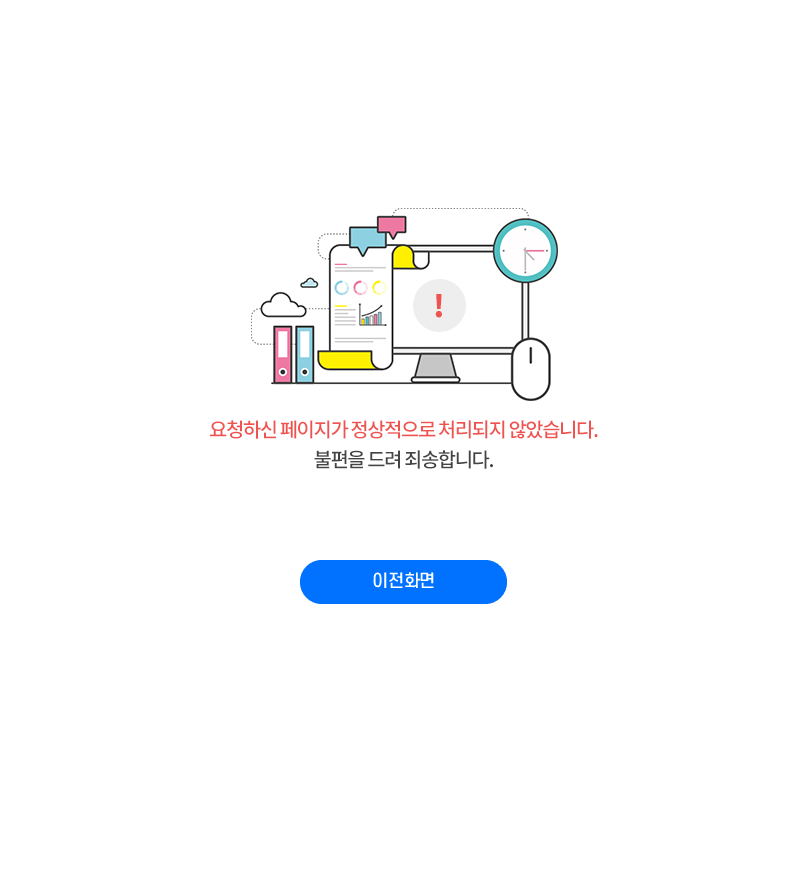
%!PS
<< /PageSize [807 872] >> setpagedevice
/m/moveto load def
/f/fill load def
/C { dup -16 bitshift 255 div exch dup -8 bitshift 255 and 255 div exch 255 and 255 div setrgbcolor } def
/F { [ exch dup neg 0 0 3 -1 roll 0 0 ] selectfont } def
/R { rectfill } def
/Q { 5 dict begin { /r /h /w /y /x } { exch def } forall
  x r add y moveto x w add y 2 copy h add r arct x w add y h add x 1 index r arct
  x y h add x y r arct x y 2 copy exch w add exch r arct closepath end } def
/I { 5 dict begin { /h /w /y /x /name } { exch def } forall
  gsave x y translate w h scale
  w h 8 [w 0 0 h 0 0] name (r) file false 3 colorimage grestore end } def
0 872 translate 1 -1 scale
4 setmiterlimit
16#FFFFFF C
0 0 807 872 R
(1.rgb) 210 208 388 261 I
16#0072FF C
300 560 207 44 22 Q f
/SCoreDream-Medium 17 F
16#FFFFFF C
372 587 m -.5 0 (이전화면) ashow
showpage
